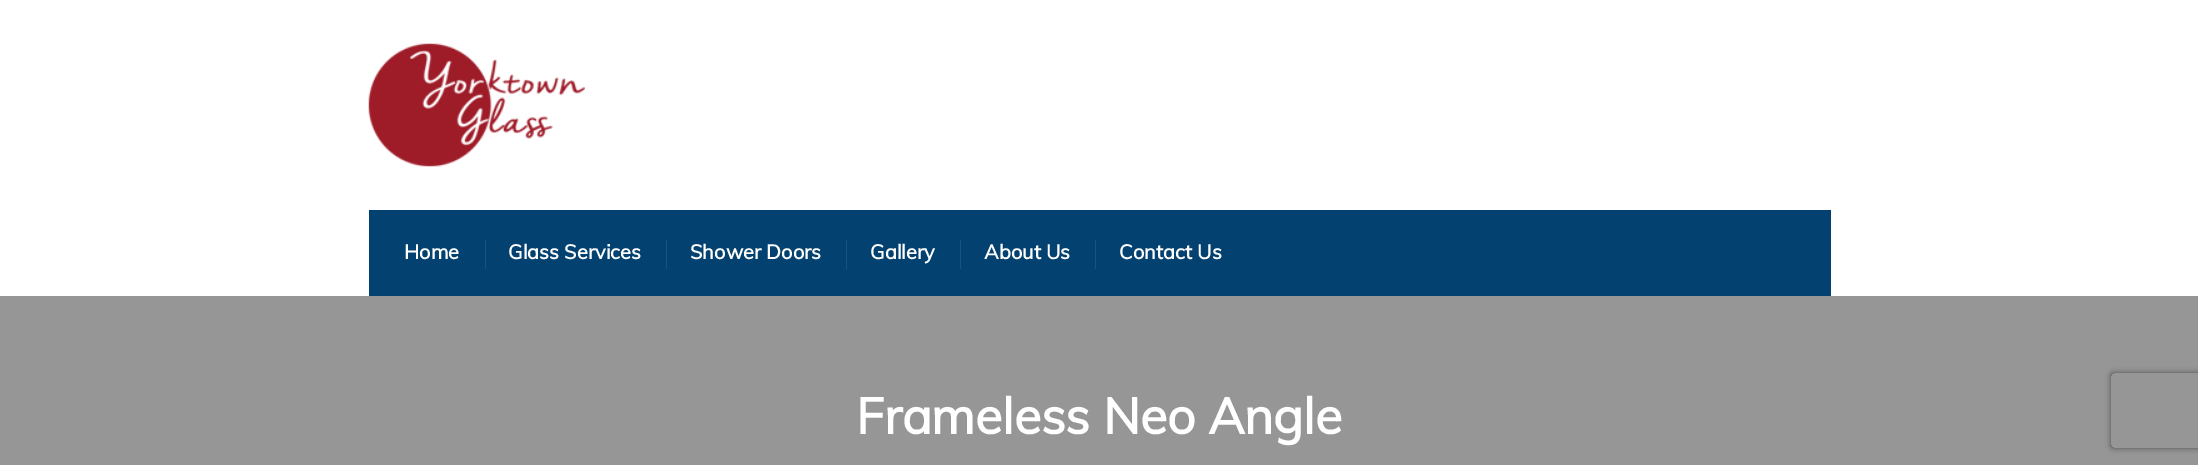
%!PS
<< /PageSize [2198 465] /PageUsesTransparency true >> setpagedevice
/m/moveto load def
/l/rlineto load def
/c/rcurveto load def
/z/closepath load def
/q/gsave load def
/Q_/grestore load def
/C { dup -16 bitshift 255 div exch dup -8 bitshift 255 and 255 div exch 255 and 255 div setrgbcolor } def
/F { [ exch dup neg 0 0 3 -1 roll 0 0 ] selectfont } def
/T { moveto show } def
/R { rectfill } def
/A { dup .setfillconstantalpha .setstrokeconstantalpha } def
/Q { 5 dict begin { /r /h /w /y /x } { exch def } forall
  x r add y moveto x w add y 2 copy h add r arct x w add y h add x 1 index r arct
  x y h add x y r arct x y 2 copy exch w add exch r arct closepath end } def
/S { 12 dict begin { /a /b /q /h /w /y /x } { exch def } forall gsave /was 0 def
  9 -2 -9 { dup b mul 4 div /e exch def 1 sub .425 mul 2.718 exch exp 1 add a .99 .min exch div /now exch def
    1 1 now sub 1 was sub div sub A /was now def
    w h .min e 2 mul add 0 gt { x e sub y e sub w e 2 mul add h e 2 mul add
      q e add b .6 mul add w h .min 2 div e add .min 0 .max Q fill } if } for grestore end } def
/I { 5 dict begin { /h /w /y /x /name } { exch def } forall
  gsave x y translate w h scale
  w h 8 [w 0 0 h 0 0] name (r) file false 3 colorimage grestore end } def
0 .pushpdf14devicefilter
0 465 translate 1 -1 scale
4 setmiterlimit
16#FFFFFF C
0 0 2198 465 R
(1.rgb) 368 43 217 124 I
16#034170 C
369 210 1462 86 R
/Muli-Bold 20 F
16#FFFFFF C
(Home) 404 259 T
16#1A527D C
485 240 1 29 R
16#FFFFFF C
(Glass Services) 508 259 T
16#1A527D C
666 240 1 29 R
16#FFFFFF C
(Shower Doors) 690 259 T
16#1A527D C
846 240 1 29 R
16#FFFFFF C
(Gallery) 870 259 T
16#1A527D C
960 240 1 29 R
16#FFFFFF C
(About Us) 984 259 T
16#1A527D C
1095 240 1 29 R
16#FFFFFF C
(Contact Us) 1119 259 T
16#969696 C
0 296 2198 169 R
/Muli-Bold 50 F
16#FFFFFF C
856 434 m -.25 0 (Frameless Neo Angle) ashow
q
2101 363 m 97 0 l 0 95 l -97 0 l z 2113.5 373 m 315 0 l 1.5 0 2.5 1 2.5 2.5 c 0 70 l 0 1.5 -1 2.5 -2.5 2.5 c -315 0 l -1.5 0 -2.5 -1 -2.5 -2.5 c 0 -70 l 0 -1.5 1 -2.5 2.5 -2.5 c z eoclip newpath
16#4D4D4D C
2111 373 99 75 2.5 3 1 S
Q_
.poppdf14devicefilter showpage
